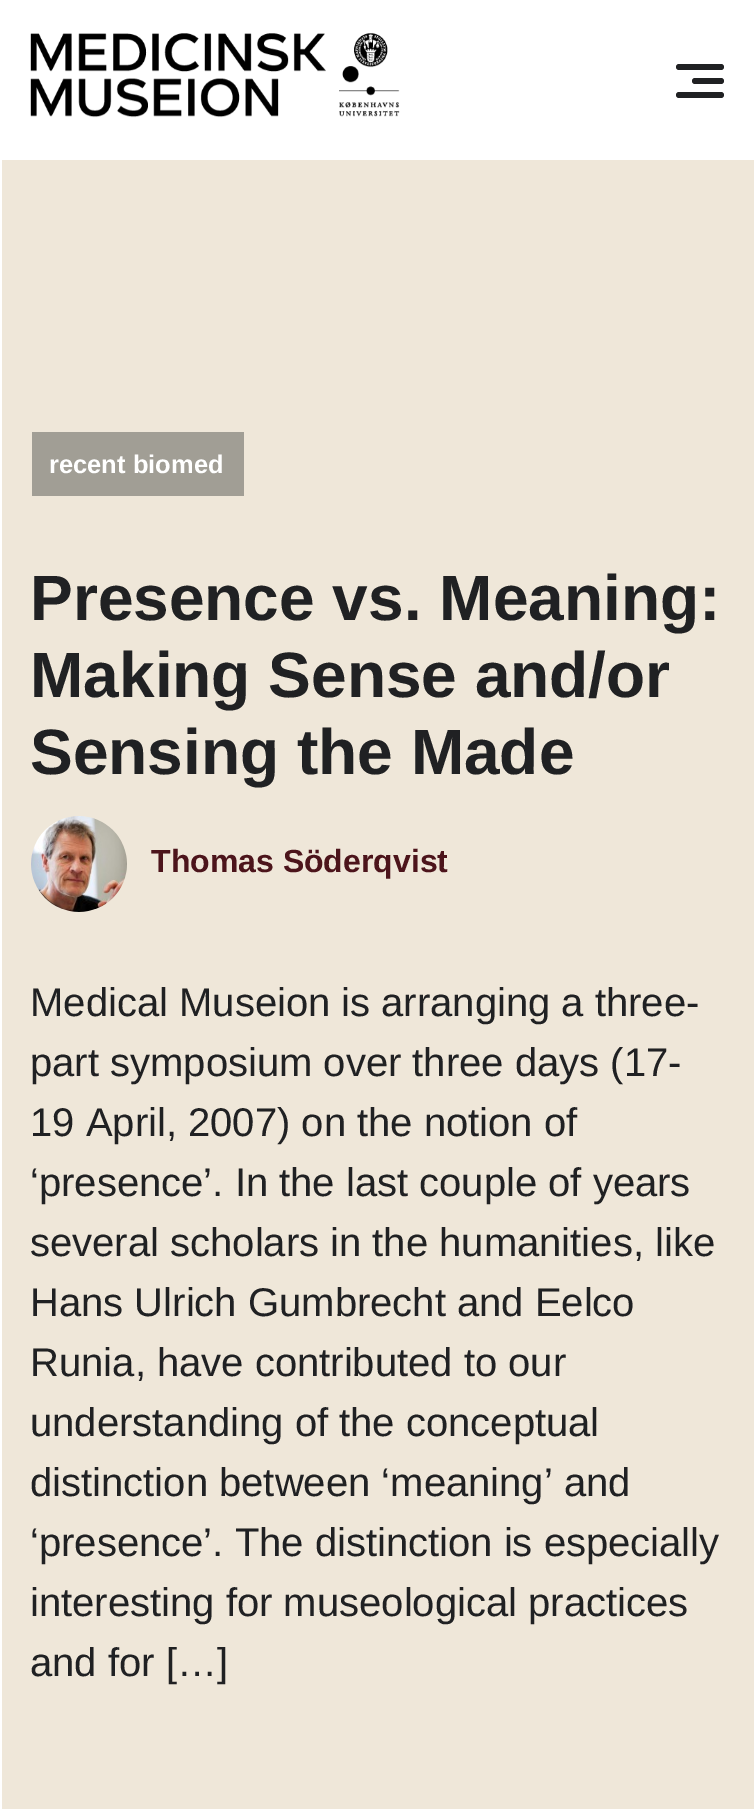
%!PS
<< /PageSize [754 1809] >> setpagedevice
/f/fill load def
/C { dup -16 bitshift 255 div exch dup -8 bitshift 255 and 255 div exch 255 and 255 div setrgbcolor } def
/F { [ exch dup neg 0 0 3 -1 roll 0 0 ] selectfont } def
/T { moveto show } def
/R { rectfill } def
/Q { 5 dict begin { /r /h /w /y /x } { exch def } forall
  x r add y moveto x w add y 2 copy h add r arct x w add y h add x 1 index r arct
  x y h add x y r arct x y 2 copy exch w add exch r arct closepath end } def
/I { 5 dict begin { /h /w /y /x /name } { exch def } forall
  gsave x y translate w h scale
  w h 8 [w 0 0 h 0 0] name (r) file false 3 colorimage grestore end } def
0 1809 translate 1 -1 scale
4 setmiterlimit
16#FFFFFF C
0 0 754 1809 R
(1.rgb) 30 33 370 85 I
16#202123 C
676 64 48 6 3 Q f
692 78 32 6 3 Q f
676 92 48 6 3 Q f
16#EFE7D9 C
2 160 752 1649 R
16#A19E95 C
32 432 212 64 R
/LiberationSans-Bold 25.5 F
16#FFFFFF C
(recent biomed) 49 473 T
/LiberationSans-Bold 64 F
16#202123 C
(Presence vs. Meaning:) 30 620 T
(Making Sense and/or) 30 697 T
(Sensing the Made) 30 774 T
(2.rgb) 31 816 96 96 I
/LiberationSans-Bold 32 F
16#4C141B C
(Thomas Söderqvist) 151 872 T
/LiberationSans-Regular 40 F
16#202123 C
(Medical Museion is arranging a three-) 30 1016 T
(part symposium over three days \(17-) 30 1076 T
(19 April, 2007\) on the notion of) 30 1136 T
(‘presence’. In the last couple of years) 30 1196 T
(several scholars in the humanities, like) 30 1256 T
(Hans Ulrich Gumbrecht and Eelco) 30 1316 T
(Runia, have contributed to our) 30 1376 T
(understanding of the conceptual) 30 1436 T
(distinction between ‘meaning’ and) 30 1496 T
(‘presence’. The distinction is especially) 30 1556 T
(interesting for museological practices) 30 1616 T
(and for […]) 30 1676 T
showpage
